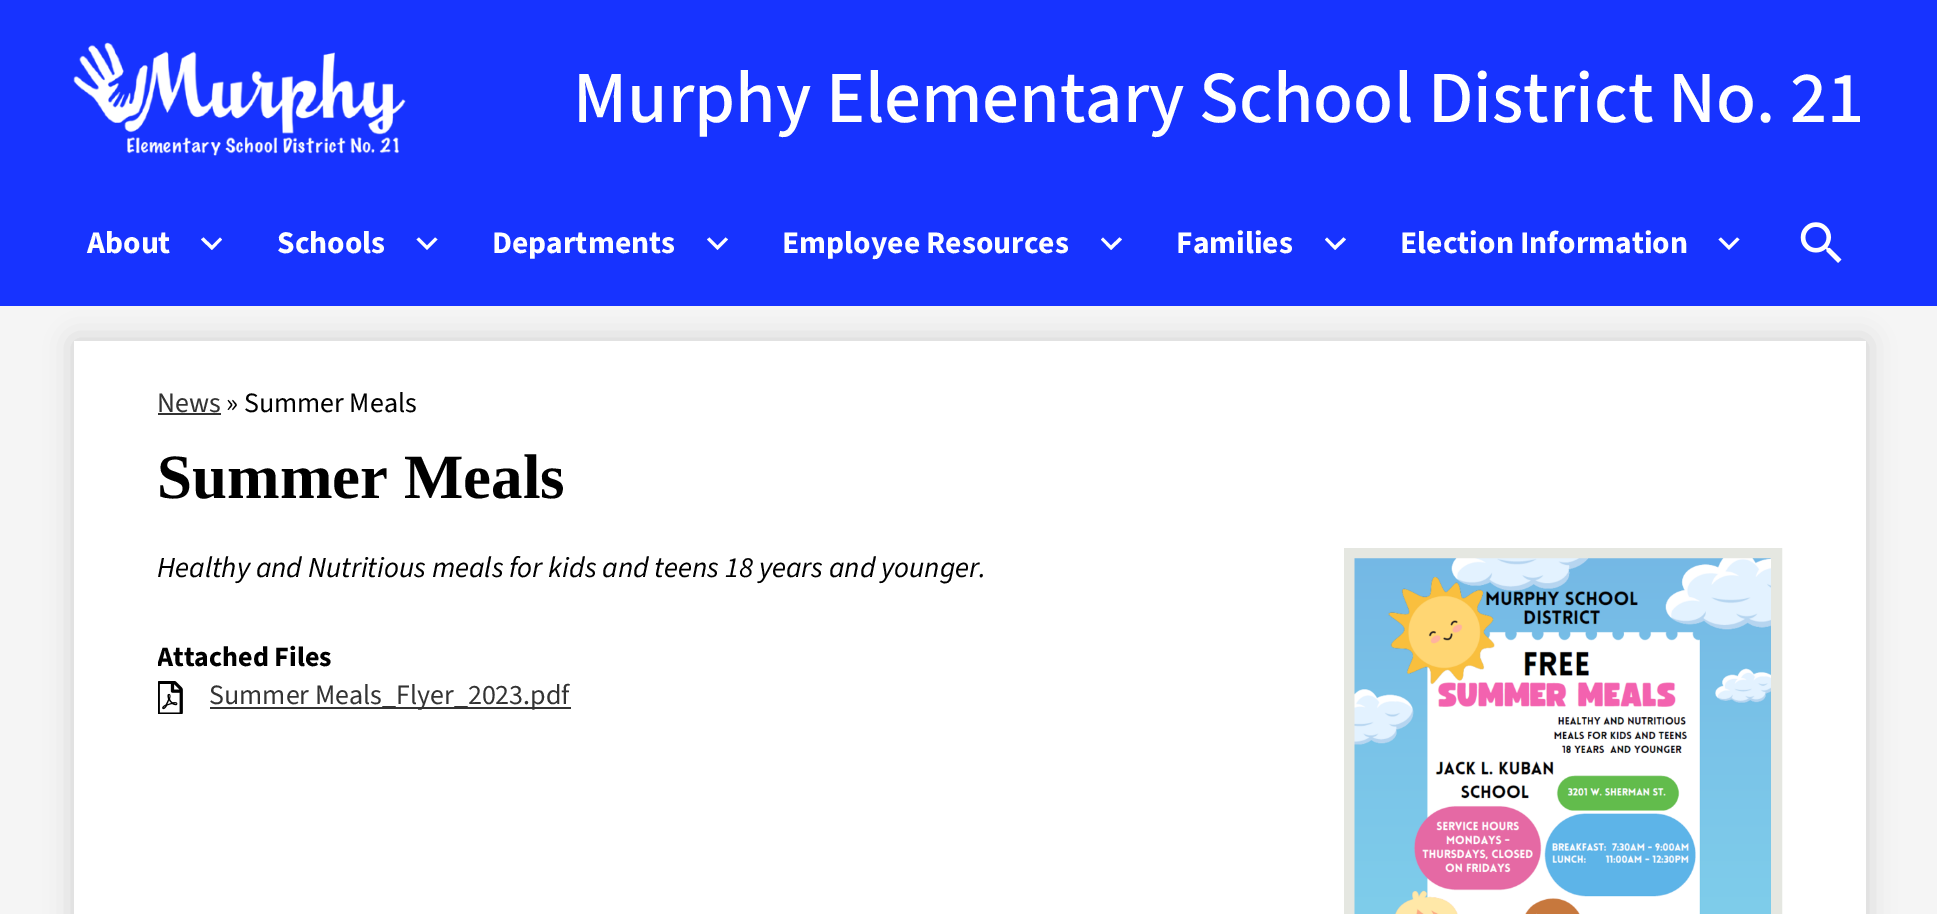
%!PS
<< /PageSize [1937 914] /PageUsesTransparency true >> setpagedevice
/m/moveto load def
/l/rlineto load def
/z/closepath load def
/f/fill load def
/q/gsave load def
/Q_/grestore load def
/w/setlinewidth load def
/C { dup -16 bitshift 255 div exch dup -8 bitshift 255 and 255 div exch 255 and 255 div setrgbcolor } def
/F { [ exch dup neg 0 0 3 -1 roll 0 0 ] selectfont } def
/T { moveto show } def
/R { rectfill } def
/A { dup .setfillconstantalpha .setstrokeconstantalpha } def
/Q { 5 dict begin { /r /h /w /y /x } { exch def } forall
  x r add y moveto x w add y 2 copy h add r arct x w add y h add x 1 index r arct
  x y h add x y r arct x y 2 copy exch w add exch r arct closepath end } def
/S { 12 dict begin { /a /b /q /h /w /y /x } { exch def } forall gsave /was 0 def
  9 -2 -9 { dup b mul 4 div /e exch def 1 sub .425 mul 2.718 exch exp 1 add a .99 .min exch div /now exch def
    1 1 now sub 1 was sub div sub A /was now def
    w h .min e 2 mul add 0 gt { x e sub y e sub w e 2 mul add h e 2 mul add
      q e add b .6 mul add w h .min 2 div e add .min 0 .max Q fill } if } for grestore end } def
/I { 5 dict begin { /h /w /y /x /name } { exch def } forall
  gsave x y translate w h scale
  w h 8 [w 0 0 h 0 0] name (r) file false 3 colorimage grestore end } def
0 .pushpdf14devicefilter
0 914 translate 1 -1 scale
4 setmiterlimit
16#F5F5F5 C
0 0 1937 914 R
16#000000 C
74 341 1792 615 0 14 .15 S
16#1733FF C
0 0 1937 306 R
(1.rgb) 73 42 333 114 I
/SourceSans3-Medium 73.5 F
16#FFFFFF C
(Murphy Elementary School District No. 21) 573 122 T
/SourceSans3-Bold 31.5 F
(About) 87 253 T
220 237.5 m 2 2 l -10 10.5 l -11 -10.5 l 2.5 -2 l 8.5 8 l z f
(Schools) 277 253 T
435 237.5 m 2.5 2 l -10.5 10.5 l -10.5 -10.5 l 2.5 -2 l 8 8 l z f
(Departments) 492 253 T
725.5 237.5 m 2.5 2 l -10.5 10.5 l -10.5 -10.5 l 2.5 -2 l 8 8 l z f
(Employee Resources) 782 253 T
1119.5 237.5 m 2.5 2 l -11 10.5 l -10 -10.5 l 2 -2 l 8 8 l z f
(Families) 1176 253 T
1343.5 237.5 m 2.5 2 l -11 10.5 l -10 -10.5 l 2 -2 l 8 8 l z f
(Election Information) 1400 253 T
1737 237.5 m 2.5 2 l -10.5 10.5 l -10.5 -10.5 l 2.5 -2 l 8 8 l z f
(2.rgb) 1800 222 42 41 I
74 341 1792 573 R
/SourceSans3-Regular 28 F
16#333333 C
(News) 157 412 T
158 413 63 2 R
16#000000 C
(» Summer Meals) 226 412 T
/LiberationSerif-Bold 63 F
(Summer Meals) 157 498 T
/SourceSans3-Italic 29.15 F
(Healthy and Nutritious meals for kids and teens 18 years and younger.) 157 577 T
q
158 548 1144 245 rectclip
/SourceSans3-Bold 28 F
(Attached Files) 157 666 T
Q_
(3.rgb) 158 681 25 33 I
16#333333 C
210 707 361 2 R
/SourceSans3-Regular 28 F
(Summer Meals_Flyer_2023.pdf) 209 704 T
16#E5E7E1 C
11 w
1349.5 553.5 427 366 rectstroke
(4.rgb) 1354 558 417 356 I
.poppdf14devicefilter showpage
